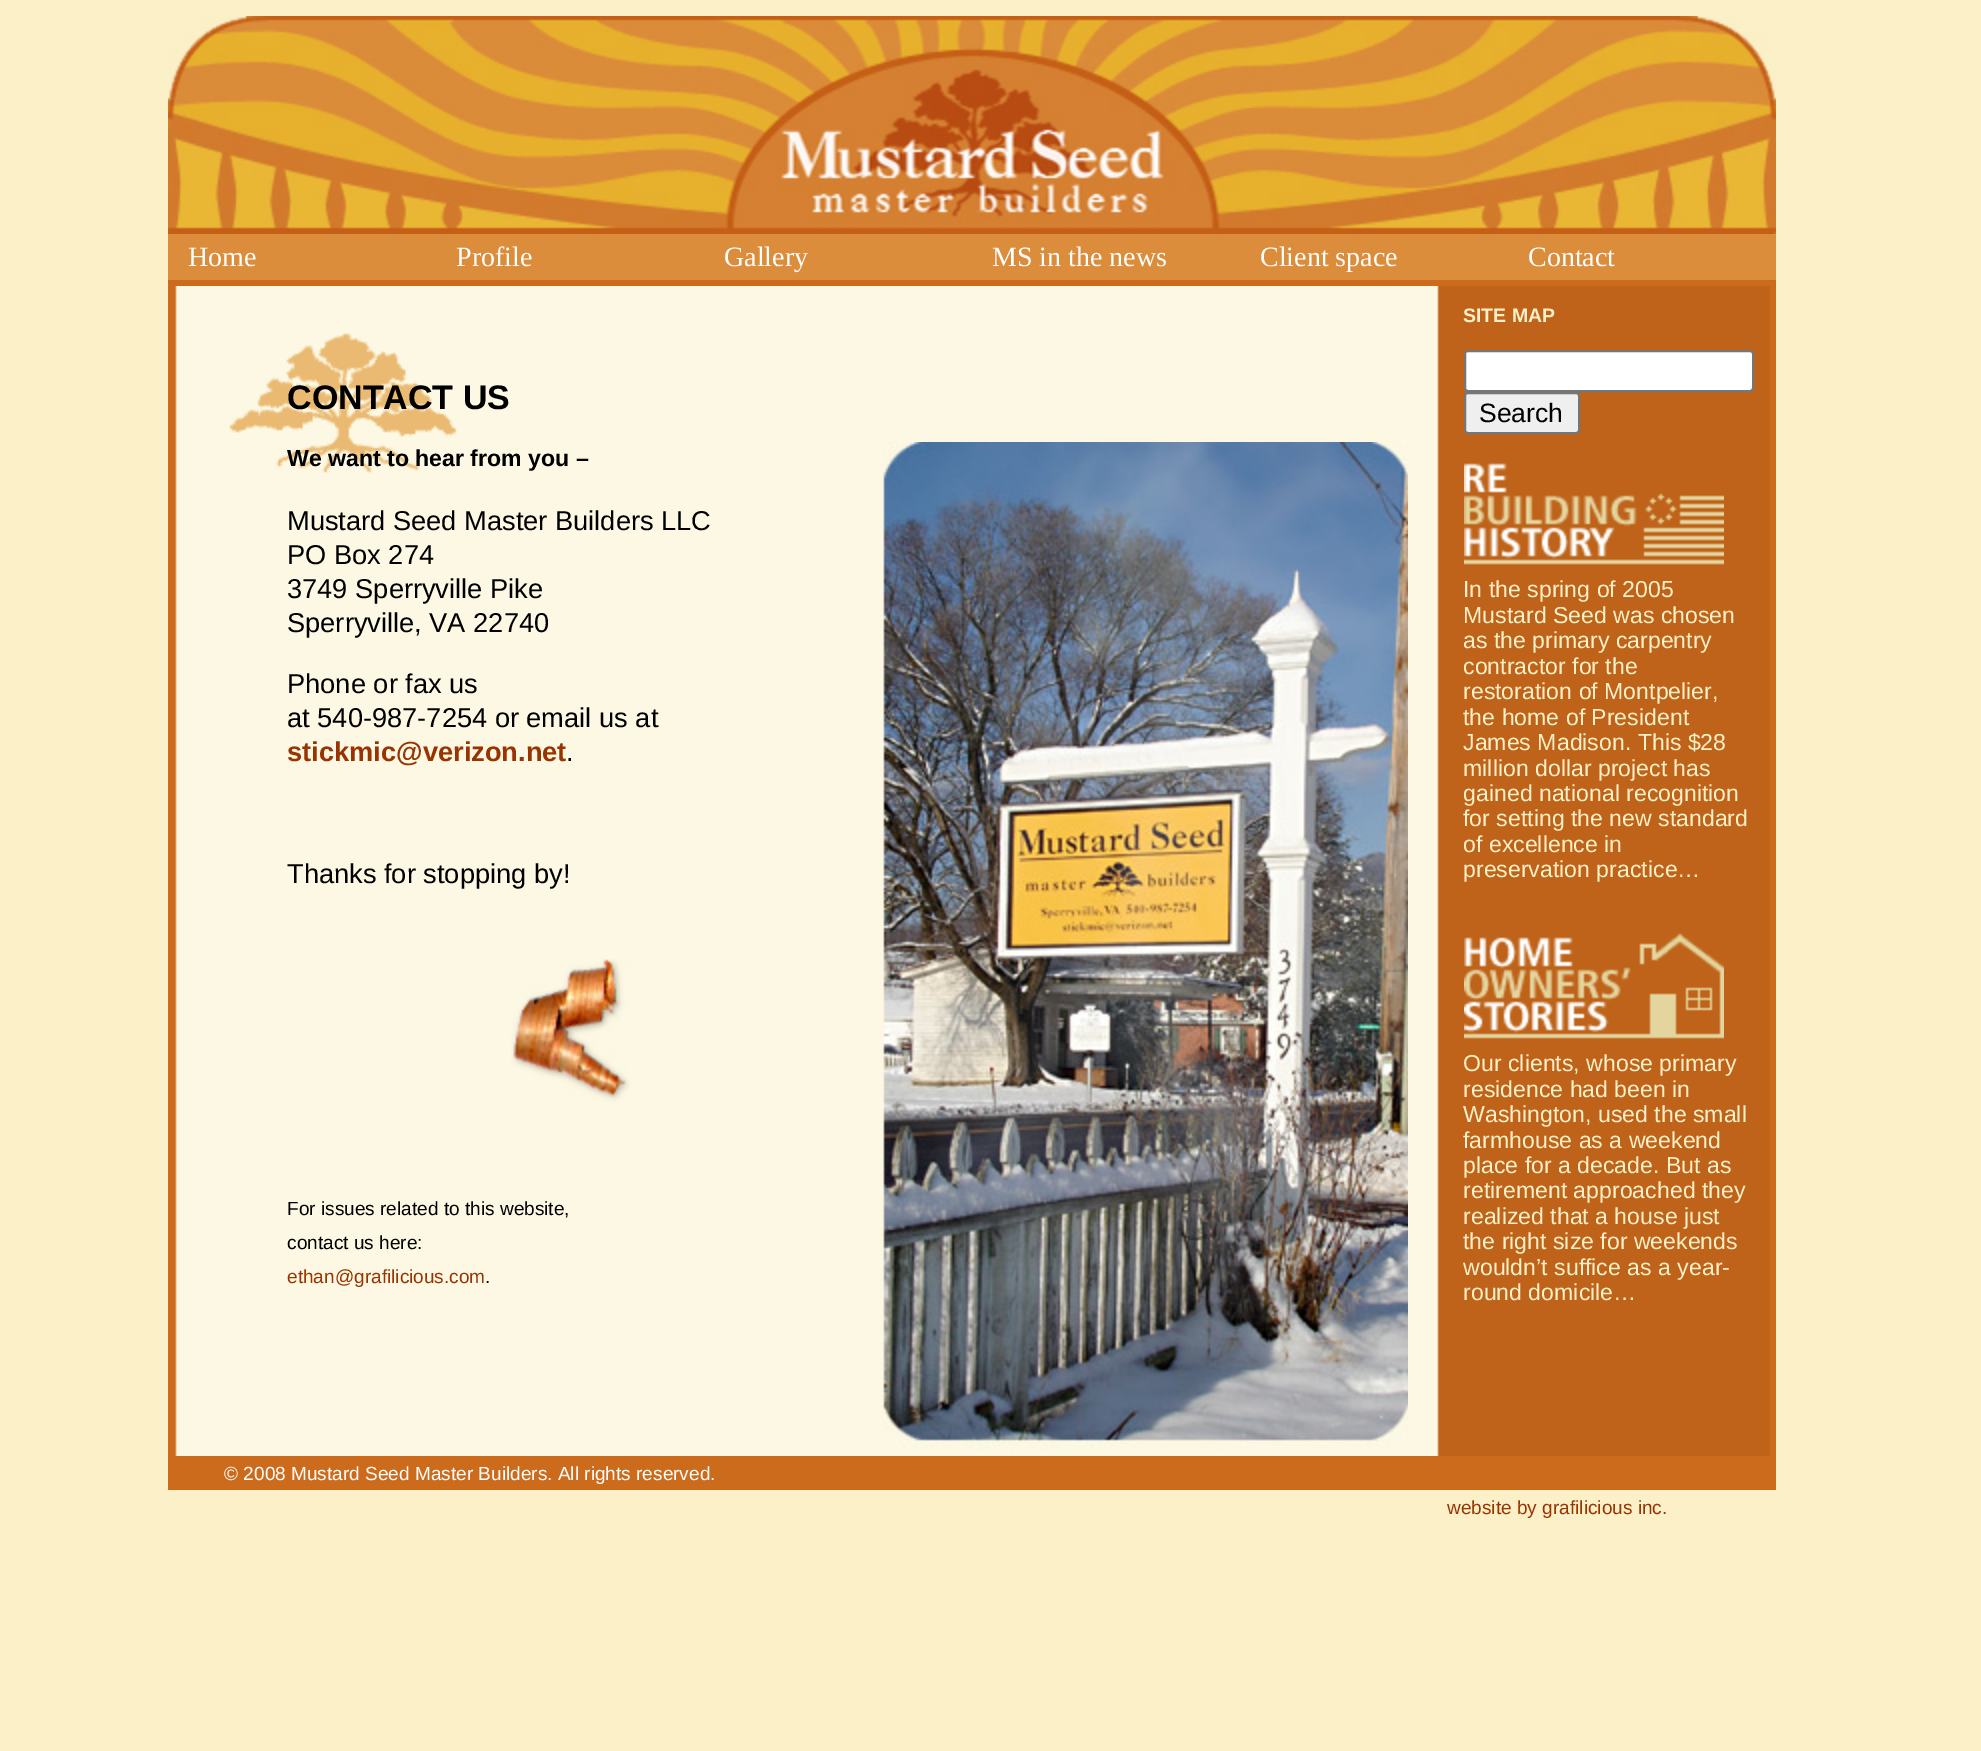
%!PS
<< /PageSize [1981 1751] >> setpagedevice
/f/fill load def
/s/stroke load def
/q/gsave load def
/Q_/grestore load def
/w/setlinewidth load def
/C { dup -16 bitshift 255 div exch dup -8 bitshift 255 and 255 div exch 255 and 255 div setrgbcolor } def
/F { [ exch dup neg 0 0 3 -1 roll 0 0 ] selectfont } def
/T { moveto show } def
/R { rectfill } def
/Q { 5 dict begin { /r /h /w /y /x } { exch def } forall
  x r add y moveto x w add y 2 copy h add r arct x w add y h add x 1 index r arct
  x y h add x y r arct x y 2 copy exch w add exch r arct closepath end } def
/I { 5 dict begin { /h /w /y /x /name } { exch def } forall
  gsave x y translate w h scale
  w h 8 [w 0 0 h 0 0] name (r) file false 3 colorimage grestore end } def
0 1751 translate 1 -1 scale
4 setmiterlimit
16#FBF0C7 C
0 0 1981 1751 R
(1.rgb) 168 16 1608 218 I
16#DB8D3B C
168 234 1608 46 R
/LiberationSerif-Regular 28 F
16#FFFFFF C
(Home) 188 266 T
(Profile) 456 266 T
(Gallery) 724 266 T
(MS in the news) 992 266 T
(Client space) 1260 266 T
(Contact) 1528 266 T
16#CD6B1C C
168 280 1608 6 R
(2.rgb) 168 286 1608 1170 I
(3.rgb) 229 333 228 140 I
/LiberationSans-Bold 34 F
16#000000 C
(CONTACT US) 287 409 T
/LiberationSans-Bold 23.1 F
(We want to hear from you –) 287 466 T
(4.rgb) 883 442 525 1008 I
/LiberationSans-Regular 27.25 F
(Mustard Seed Master Builders LLC) 287 530 T
(PO Box 274) 287 564 T
(3749 Sperryville Pike) 287 598 T
(Sperryville, VA 22740) 287 632 T
(Phone or fax us) 287 693 T
(at 540-987-7254 or email us at) 287 727 T
/LiberationSans-Bold 27.25 F
16#993300 C
(stickmic@verizon.net) 287 761 T
/LiberationSans-Regular 27.25 F
16#000000 C
(.) 566 761 T
(Thanks for stopping by!) 287 883 T
(5.rgb) 511 959 119 143 I
/LiberationSans-Regular 19.05 F
(For issues related to this website,) 287 1215 T
(contact us here:) 287 1249 T
16#993300 C
(ethan@grafilicious.com) 287 1283 T
16#000000 C
(.) 485 1283 T
/LiberationSans-Bold 19.5 F
16#FBF0C7 C
(SITE MAP) 1463 322 T
16#FFFFFF C
1465 351 288 40 3 Q q f Q_
16#767676 C
2 w
s
16#EFEFEF C
1465 393 114 40 3 Q q f Q_
16#767676 C
s
/LiberationSans-Regular 26.5 F
16#000000 C
(Search) 1479 422 T
(6.rgb) 1464 463 260 102 I
/LiberationSans-Regular 23.1 F
16#FBF0C7 C
(In the spring of 2005) 1463 597 T
(Mustard Seed was chosen) 1463 623 T
(as the primary carpentry) 1463 648 T
(contractor for the) 1463 674 T
(restoration of Montpelier,) 1463 699 T
(the home of President) 1463 725 T
(James Madison. This $28) 1463 750 T
(million dollar project has) 1463 776 T
(gained national recognition) 1463 801 T
(for setting the new standard) 1463 826 T
(of excellence in) 1463 852 T
(preservation practice…) 1463 877 T
(7.rgb) 1464 933 260 106 I
(Our clients, whose primary) 1463 1071 T
(residence had been in) 1463 1097 T
(Washington, used the small) 1463 1122 T
(farmhouse as a weekend) 1463 1148 T
(place for a decade. But as) 1463 1173 T
(retirement approached they) 1463 1198 T
(realized that a house just) 1463 1224 T
(the right size for weekends) 1463 1249 T
(wouldn’t suffice as a year-) 1463 1275 T
(round domicile…) 1463 1300 T
16#CD6B1C C
168 1456 1608 34 R
/LiberationSans-Regular 19.05 F
16#FFFFFF C
(© 2008 Mustard Seed Master Builders. All rights reserved.) 224 1480 T
16#993300 C
(website by grafilicious inc.) 1447 1514 T
showpage
